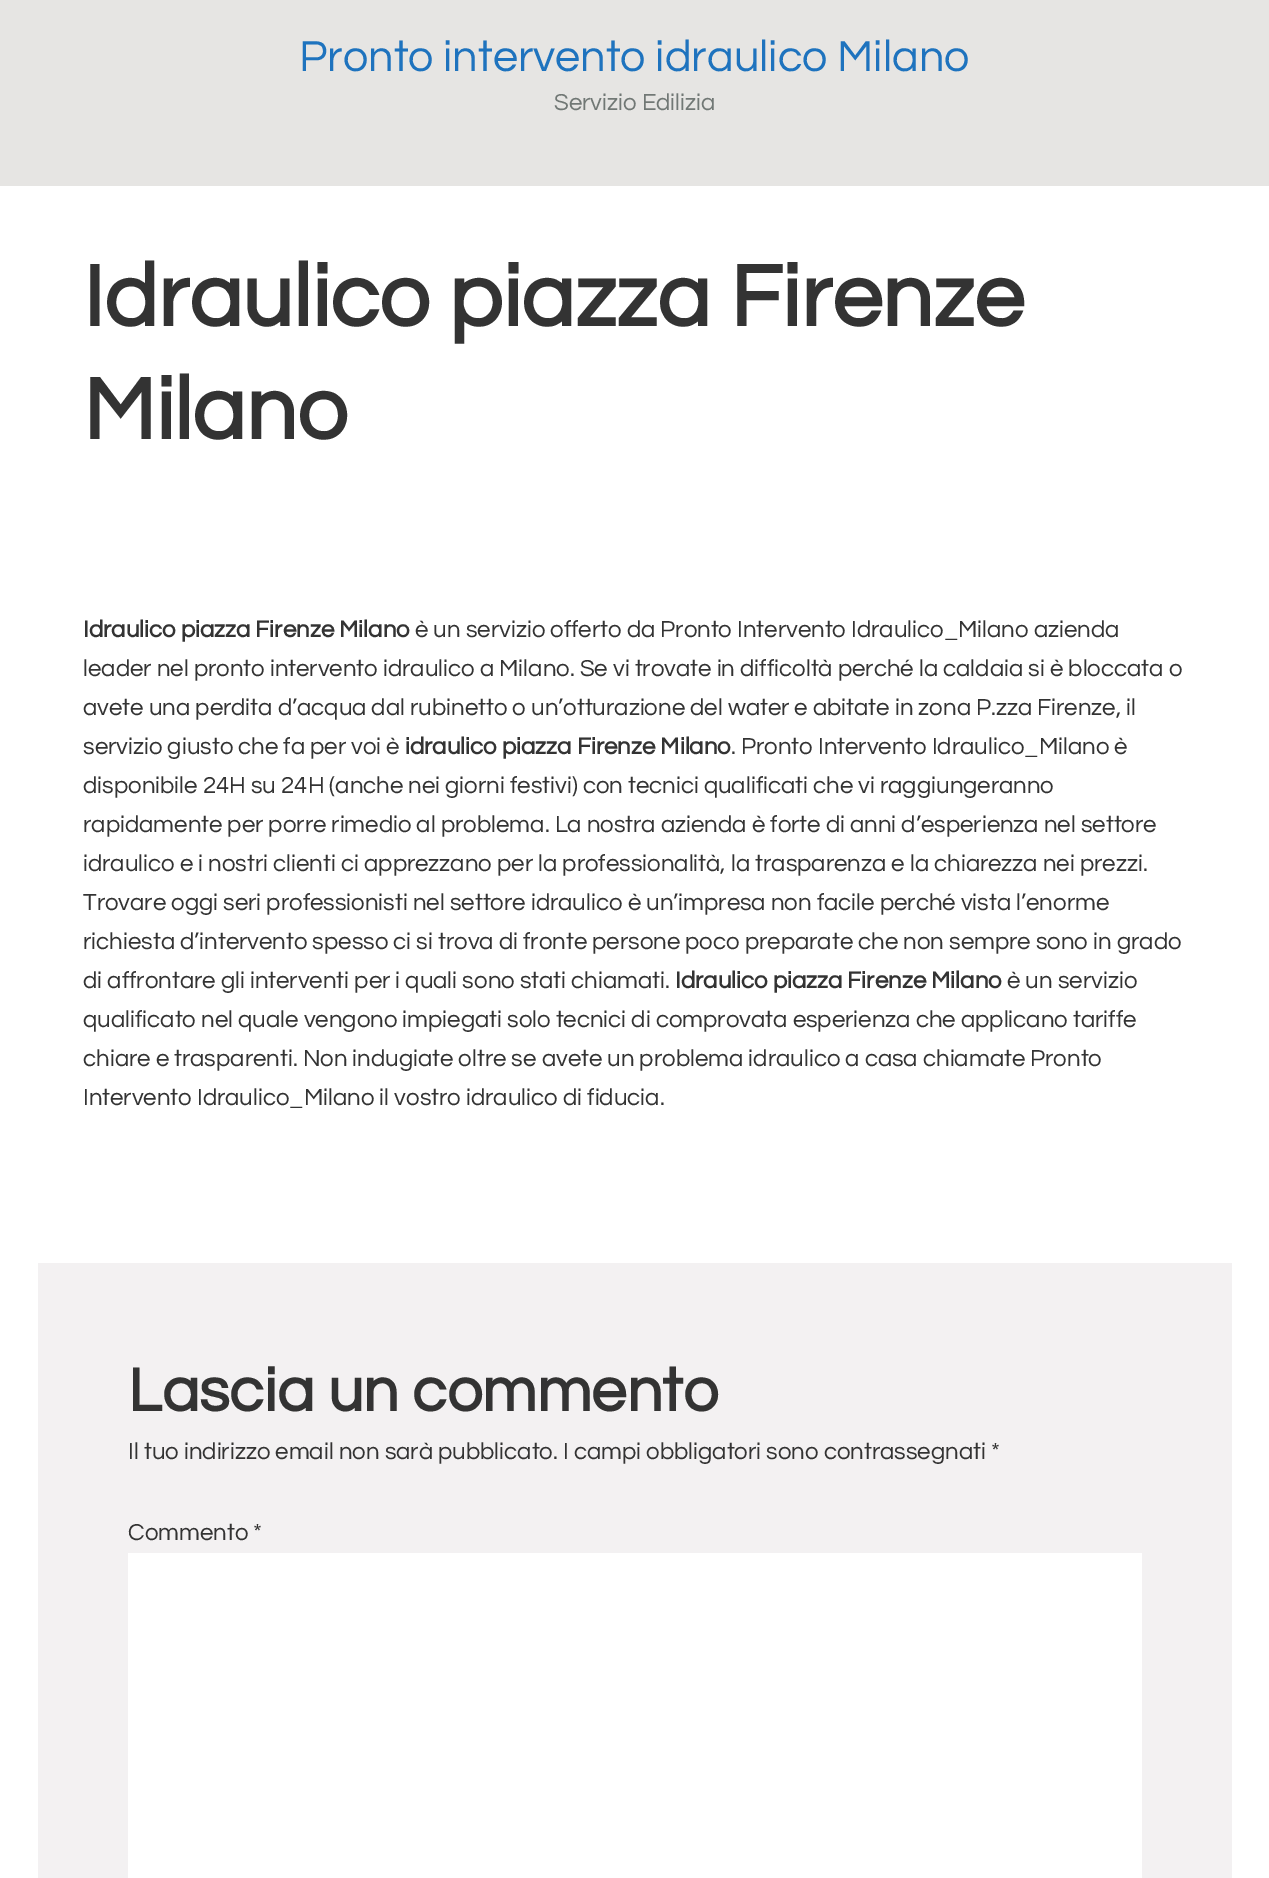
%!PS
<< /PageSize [1269 1878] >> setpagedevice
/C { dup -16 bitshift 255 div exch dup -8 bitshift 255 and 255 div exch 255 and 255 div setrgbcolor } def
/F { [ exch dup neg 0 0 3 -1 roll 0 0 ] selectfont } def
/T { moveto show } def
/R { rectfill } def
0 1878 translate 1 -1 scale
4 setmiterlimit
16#FFFFFF C
0 0 1269 1878 R
16#E6E5E3 C
0 0 1269 186 R
/Questrial-Regular 45 F
16#1E73BE C
(Pronto intervento idraulico Milano) 299 71 T
/Questrial-Regular 24 F
16#717875 C
(Servizio Edilizia) 554 110 T
/Questrial-Bold 90 F
16#333333 C
(Idraulico piazza Firenze) 83 326 T
(Milano) 83 439 T
/Questrial-Bold 24 F
(Idraulico piazza Firenze Milano) 83 637 T
/Questrial-Regular 24 F
(è un servizio offerto da Pronto Intervento Idraulico_Milano azienda) 415 637 T
(leader nel pronto intervento idraulico a Milano. Se vi trovate in difficoltà perché la caldaia si è bloccata o) 83 676 T
(avete una perdita d’acqua dal rubinetto o un’otturazione del water e abitate in zona P.zza Firenze, il) 83 715 T
(servizio giusto che fa per voi è) 83 754 T
/Questrial-Bold 24 F
(idraulico piazza Firenze Milano) 405 754 T
/Questrial-Regular 24 F
(. Pronto Intervento Idraulico_Milano è) 731 754 T
(disponibile 24H su 24H \(anche nei giorni festivi\) con tecnici qualificati che vi raggiungeranno) 83 793 T
(rapidamente per porre rimedio al problema. La nostra azienda è forte di anni d’esperienza nel settore) 83 832 T
(idraulico e i nostri clienti ci apprezzano per la professionalità, la trasparenza e la chiarezza nei prezzi.) 83 871 T
(Trovare oggi seri professionisti nel settore idraulico è un’impresa non facile perché vista l’enorme) 83 910 T
(richiesta d’intervento spesso ci si trova di fronte persone poco preparate che non sempre sono in grado) 83 949 T
(di affrontare gli interventi per i quali sono stati chiamati.) 83 988 T
/Questrial-Bold 24 F
(Idraulico piazza Firenze Milano) 675 988 T
/Questrial-Regular 24 F
(è un servizio) 1007 988 T
(qualificato nel quale vengono impiegati solo tecnici di comprovata esperienza che applicano tariffe) 83 1027 T
(chiare e trasparenti. Non indugiate oltre se avete un problema idraulico a casa chiamate Pronto) 83 1066 T
(Intervento Idraulico_Milano il vostro idraulico di fiducia.) 83 1105 T
16#F3F1F2 C
38 1263 1194 615 R
/Questrial-Bold 63 F
16#333333 C
(Lascia un commento) 128 1411 T
/Questrial-Regular 24 F
(Il tuo indirizzo email non sarà pubblicato. I campi obbligatori sono contrassegnati *) 128 1459 T
(Commento *) 128 1540 T
16#FFFFFF C
128 1553 1014 325 R
showpage
